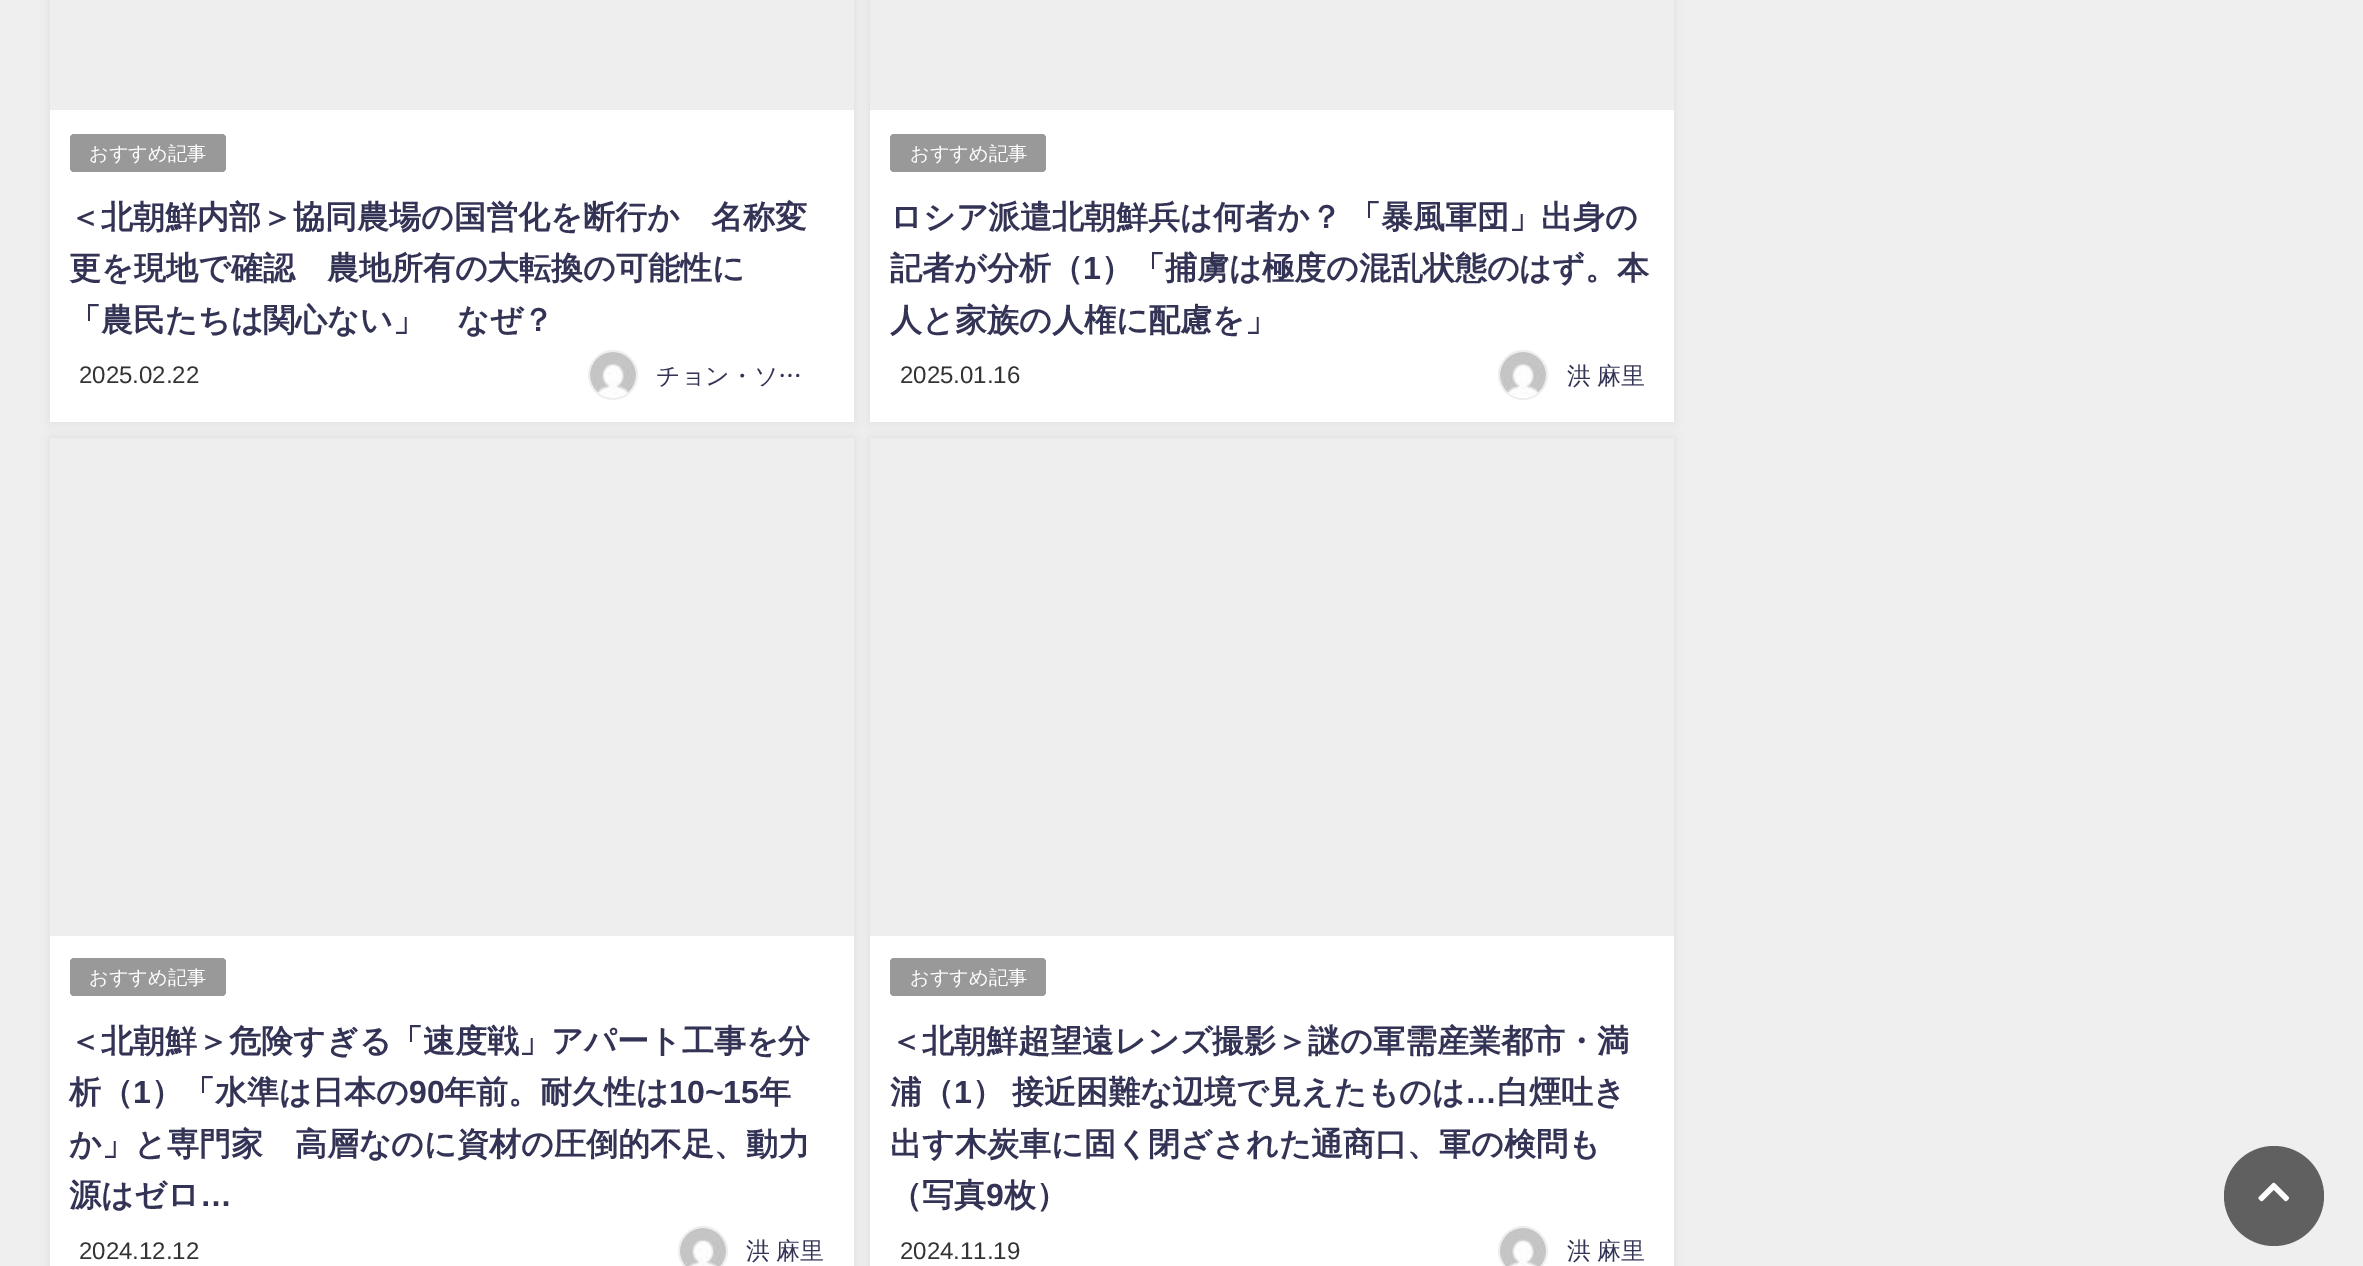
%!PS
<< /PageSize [2363 1266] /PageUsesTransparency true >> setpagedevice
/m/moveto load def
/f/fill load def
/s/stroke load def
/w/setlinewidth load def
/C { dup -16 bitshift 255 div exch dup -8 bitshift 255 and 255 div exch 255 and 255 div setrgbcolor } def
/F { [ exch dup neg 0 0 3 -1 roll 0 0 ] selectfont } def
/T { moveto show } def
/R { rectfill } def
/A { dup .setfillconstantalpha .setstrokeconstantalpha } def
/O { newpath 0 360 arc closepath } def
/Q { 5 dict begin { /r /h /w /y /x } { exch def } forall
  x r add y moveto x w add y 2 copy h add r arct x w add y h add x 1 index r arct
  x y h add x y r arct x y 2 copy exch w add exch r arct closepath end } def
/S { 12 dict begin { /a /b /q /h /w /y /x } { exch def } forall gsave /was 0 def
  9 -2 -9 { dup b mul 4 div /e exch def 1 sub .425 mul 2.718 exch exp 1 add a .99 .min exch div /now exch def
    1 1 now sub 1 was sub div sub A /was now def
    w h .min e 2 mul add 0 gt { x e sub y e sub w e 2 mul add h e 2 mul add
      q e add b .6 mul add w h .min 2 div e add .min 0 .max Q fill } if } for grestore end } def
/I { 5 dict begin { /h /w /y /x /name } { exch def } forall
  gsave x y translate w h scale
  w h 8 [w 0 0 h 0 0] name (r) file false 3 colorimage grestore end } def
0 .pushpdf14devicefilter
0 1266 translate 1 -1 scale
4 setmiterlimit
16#EFEFEF C
0 0 2363 1266 R
16#969696 C
50 -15 804 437 0 5 .2 S
16#FFFFFF C
50 110 804 312 R
16#EEEEEE C
50 0 804 110 R
16#999999 C
70 134 156 38 4 Q f
/WenQuanYiZenHei-Medium 19.25 F
16#FFFFFF C
(おすすめ記事) 89 160 T
/WenQuanYiZenHei-Bold 32 F
16#333355 C
(＜北朝鮮内部＞協同農場の国営化を断行か　名称変) 69 228 T
(更を現地で確認　農地所有の大転換の可能性に) 69 279 T
(「農民たちは関心ない」　なぜ？) 69 331 T
/LiberationSans-Regular 24 F
16#333333 C
(2025.02.22) 79 383 T
16#EEEEEE C
2 w
613 375 24 O s
(1.rgb) 590 352 46 44 I
/WenQuanYiZenHei-Medium 24 F
16#333355 C
(チョン・ソ…) 656 384 T
16#969696 C
870 -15 804 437 0 5 .2 S
16#FFFFFF C
870 110 804 312 R
16#EEEEEE C
870 0 804 110 R
16#999999 C
890 134 156 38 4 Q f
/WenQuanYiZenHei-Medium 19.25 F
16#FFFFFF C
(おすすめ記事) 910 160 T
/WenQuanYiZenHei-Bold 32 F
16#333355 C
890 228 m -2 0 32 (ロシア派遣北朝鮮兵は何者か？ 「暴風軍団」出身の) widthshow
(記者が分析（) 890 279 T
/LiberationSans-Bold 32 F
(1) 1083 279 T
/WenQuanYiZenHei-Bold 32 F
(）「捕虜は極度の混乱状態のはず。本) 1101 279 T
(人と家族の人権に配慮を」) 890 331 T
/LiberationSans-Regular 24 F
16#333333 C
(2025.01.16) 900 383 T
16#EEEEEE C
1523 375 24 O s
(2.rgb) 1500 352 46 46 I
/WenQuanYiZenHei-Medium 24 F
16#333355 C
1567 384 m -1 0 32 (洪 麻里) widthshow
16#969696 C
50 438 804 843 0 5 .2 S
16#FFFFFF C
50 936 804 330 R
16#EEEEEE C
50 438 804 498 R
16#999999 C
70 958 156 38 4 Q f
/WenQuanYiZenHei-Medium 19.25 F
16#FFFFFF C
(おすすめ記事) 89 984 T
/WenQuanYiZenHei-Bold 32 F
16#333355 C
(＜北朝鮮＞危険すぎる「速度戦」アパート工事を分) 69 1052 T
(析（) 69 1103 T
/LiberationSans-Bold 32 F
(1) 133 1103 T
/WenQuanYiZenHei-Bold 32 F
(）「水準は日本の) 151 1103 T
/LiberationSans-Bold 32 F
(90) 409 1103 T
/WenQuanYiZenHei-Bold 32 F
(年前。耐久性は) 444 1103 T
/LiberationSans-Bold 32 F
(10~15) 669 1103 T
/WenQuanYiZenHei-Bold 32 F
(年) 759 1103 T
(か」と専門家　高層なのに資材の圧倒的不足、動力) 69 1155 T
(源はゼロ) 69 1206 T
/LiberationSans-Bold 32 F
(…) 200 1206 T
/LiberationSans-Regular 24 F
16#333333 C
(2024.12.12) 79 1259 T
16#EEEEEE C
703 1251 24 O s
(3.rgb) 680 1228 46 38 I
/WenQuanYiZenHei-Medium 24 F
16#333355 C
746 1259 m -1 0 32 (洪 麻里) widthshow
16#969696 C
870 438 804 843 0 5 .2 S
16#FFFFFF C
870 936 804 330 R
16#EEEEEE C
870 438 804 498 R
16#999999 C
890 958 156 38 4 Q f
/WenQuanYiZenHei-Medium 19.25 F
16#FFFFFF C
(おすすめ記事) 910 984 T
/WenQuanYiZenHei-Bold 32 F
16#333355 C
(＜北朝鮮超望遠レンズ撮影＞謎の軍需産業都市・満) 890 1052 T
(浦（) 890 1103 T
/LiberationSans-Bold 32 F
(1) 954 1103 T
/WenQuanYiZenHei-Bold 32 F
972 1103 m -2 0 32 (） 接近困難な辺境で見えたものは) widthshow
/LiberationSans-Bold 32 F
(…) 1465 1103 T
/WenQuanYiZenHei-Bold 32 F
(白煙吐き) 1497 1103 T
(出す木炭車に固く閉ざされた通商口、軍の検問も) 890 1155 T
(（写真) 890 1206 T
/LiberationSans-Bold 32 F
(9) 986 1206 T
/WenQuanYiZenHei-Bold 32 F
(枚）) 1004 1206 T
/LiberationSans-Regular 24 F
16#333333 C
(2024.11.19) 900 1259 T
16#EEEEEE C
1523 1251 24 O s
(4.rgb) 1500 1228 46 38 I
/WenQuanYiZenHei-Medium 24 F
16#333355 C
1567 1259 m -1 0 32 (洪 麻里) widthshow
16#606060 C
2274 1196 50 O f
(5.rgb) 2258 1182 32 20 I
.poppdf14devicefilter showpage
